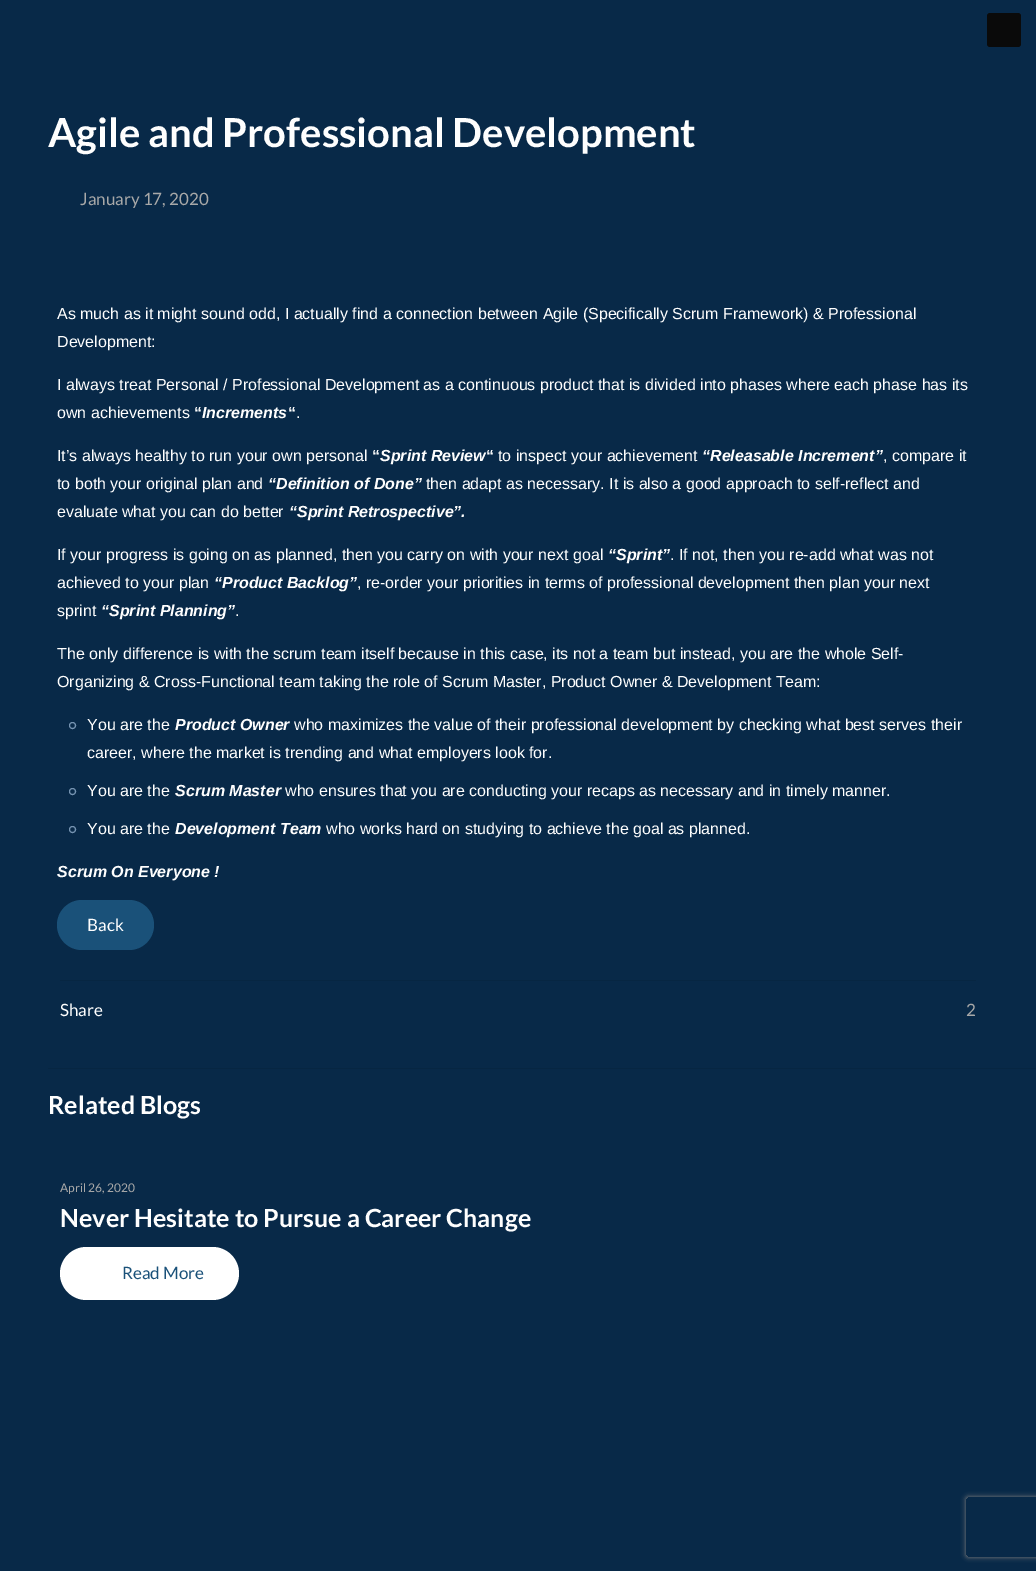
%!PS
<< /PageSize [1036 1571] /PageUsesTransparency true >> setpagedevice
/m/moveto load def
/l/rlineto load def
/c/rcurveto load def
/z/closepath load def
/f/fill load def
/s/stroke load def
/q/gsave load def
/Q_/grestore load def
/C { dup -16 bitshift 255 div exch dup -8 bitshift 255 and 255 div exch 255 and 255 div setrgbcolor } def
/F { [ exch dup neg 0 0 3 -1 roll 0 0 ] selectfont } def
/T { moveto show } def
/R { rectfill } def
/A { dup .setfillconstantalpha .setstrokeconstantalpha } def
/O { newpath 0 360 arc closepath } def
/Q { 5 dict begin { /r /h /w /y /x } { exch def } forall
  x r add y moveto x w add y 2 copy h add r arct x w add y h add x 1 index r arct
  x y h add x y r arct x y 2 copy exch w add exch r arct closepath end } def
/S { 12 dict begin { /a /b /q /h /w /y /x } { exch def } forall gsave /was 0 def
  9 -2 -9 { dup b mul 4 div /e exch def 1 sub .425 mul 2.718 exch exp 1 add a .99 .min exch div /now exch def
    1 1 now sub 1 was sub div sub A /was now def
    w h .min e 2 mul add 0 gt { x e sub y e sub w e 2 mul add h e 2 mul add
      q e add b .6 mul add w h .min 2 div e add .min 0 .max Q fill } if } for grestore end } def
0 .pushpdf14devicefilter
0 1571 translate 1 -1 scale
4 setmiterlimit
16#082948 C
0 0 1036 1571 R
16#0A0A0A C
987 13 34 34 3 Q f
/Lato-Bold 40 F
16#FEFEFE C
(Agile and Professional Development) 48 147 T
/Lato-Regular 17 F
16#A8A8A8 C
(January 17, 2020) 80 205 T
/LiberationSans-Regular 16 F
16#FEFEFE C
(As much as it might sound odd, I actually find a connection between Agile \(Specifically Scrum Framework\) & Professional) 57 319 T
(Development:) 57 347 T
(I always treat Personal / Professional Development as a continuous product that is divided into phases where each phase has its) 57 390 T
(own achievements) 57 418 T
/LiberationSans-Bold 16 F
(“) 194 418 T
/LiberationSans-BoldItalic 16 F
(Increments) 202 418 T
/LiberationSans-Bold 16 F
(“) 288 418 T
/LiberationSans-Regular 16 F
(.) 296 418 T
(It’s always healthy to run your own personal) 57 461 T
/LiberationSans-Bold 16 F
(“) 372 461 T
/LiberationSans-BoldItalic 16 F
(Sprint Review) 380 461 T
/LiberationSans-Bold 16 F
(“) 486 461 T
/LiberationSans-Regular 16 F
(to inspect your achievement) 498 461 T
/LiberationSans-BoldItalic 16 F
(“Releasable Increment”) 702 461 T
/LiberationSans-Regular 16 F
(, compare it) 883 461 T
(to both your original plan and) 57 489 T
/LiberationSans-BoldItalic 16 F
(“Definition of Done”) 268 489 T
/LiberationSans-Regular 16 F
(then adapt as necessary. It is also a good approach to self-reflect and) 426 489 T
(evaluate what you can do better) 57 517 T
/LiberationSans-BoldItalic 16 F
(“Sprint Retrospective”.) 289 517 T
/LiberationSans-Regular 16 F
(If your progress is going on as planned, then you carry on with your next goal) 57 560 T
/LiberationSans-BoldItalic 16 F
(“Sprint”) 608 560 T
/LiberationSans-Regular 16 F
(. If not, then you re-add what was not) 670 560 T
(achieved to your plan) 57 588 T
/LiberationSans-BoldItalic 16 F
(“Product Backlog”) 214 588 T
/LiberationSans-Regular 16 F
(, re-order your priorities in terms of professional development then plan your next) 357 588 T
(sprint) 57 616 T
/LiberationSans-BoldItalic 16 F
(“Sprint Planning”) 101 616 T
/LiberationSans-Regular 16 F
(.) 235 616 T
(The only difference is with the scrum team itself because in this case, its not a team but instead, you are the whole Self-) 57 659 T
(Organizing & Cross-Functional team taking the role of Scrum Master, Product Owner & Development Team:) 57 687 T
16#7492B0 C
72.5 725.5 3 O s
16#FEFEFE C
(You are the) 87 730 T
/LiberationSans-BoldItalic 16 F
(Product Owner) 175 730 T
/LiberationSans-Regular 16 F
(who maximizes the value of their professional development by checking what best serves their) 294 730 T
(career, where the market is trending and what employers look for.) 87 758 T
16#7492B0 C
72.5 791.5 3 O s
16#FEFEFE C
(You are the) 87 796 T
/LiberationSans-BoldItalic 16 F
(Scrum Master) 175 796 T
/LiberationSans-Regular 16 F
(who ensures that you are conducting your recaps as necessary and in timely manner.) 285 796 T
16#7492B0 C
72.5 829.5 3 O s
16#FEFEFE C
(You are the) 87 834 T
/LiberationSans-BoldItalic 16 F
(Development Team) 175 834 T
/LiberationSans-Regular 16 F
(who works hard on studying to achieve the goal as planned.) 326 834 T
/LiberationSans-BoldItalic 16 F
(Scrum On Everyone !) 57 877 T
16#1A5179 C
57 900 97 50 25 Q f
/Lato-Regular 17 F
16#FEFEFE C
(Back) 87 931 T
16#072642 C
60 980 916 1 R
16#FEFEFE C
(Share) 60 1016 T
16#A8A8A8 C
(2) 966 1016 T
16#072642 C
48 1068 988 1 R
/Lato-Bold 25 F
16#FEFEFE C
(Related Blogs) 48 1114 T
/Lato-Regular 12 F
16#A8A8A8 C
(April 26, 2020) 60 1192 T
/Lato-Bold 25 F
16#FEFEFE C
(Never Hesitate to Pursue a Career Change) 60 1227 T
16#FFFFFF C
60 1247 179 53 26.5 Q f
/Lato-Regular 17 F
16#1A5179 C
(Read More) 122 1279 T
q
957 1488 m 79 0 l 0 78 l -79 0 l z 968 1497 m 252 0 l 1 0 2 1 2 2 c 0 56 l 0 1 -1 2 -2 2 c -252 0 l -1 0 -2 -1 -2 -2 c 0 -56 l 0 -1 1 -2 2 -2 c z eoclip newpath
16#808080 C
966 1497 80 60 2 2.5 1 S
Q_
.poppdf14devicefilter showpage
